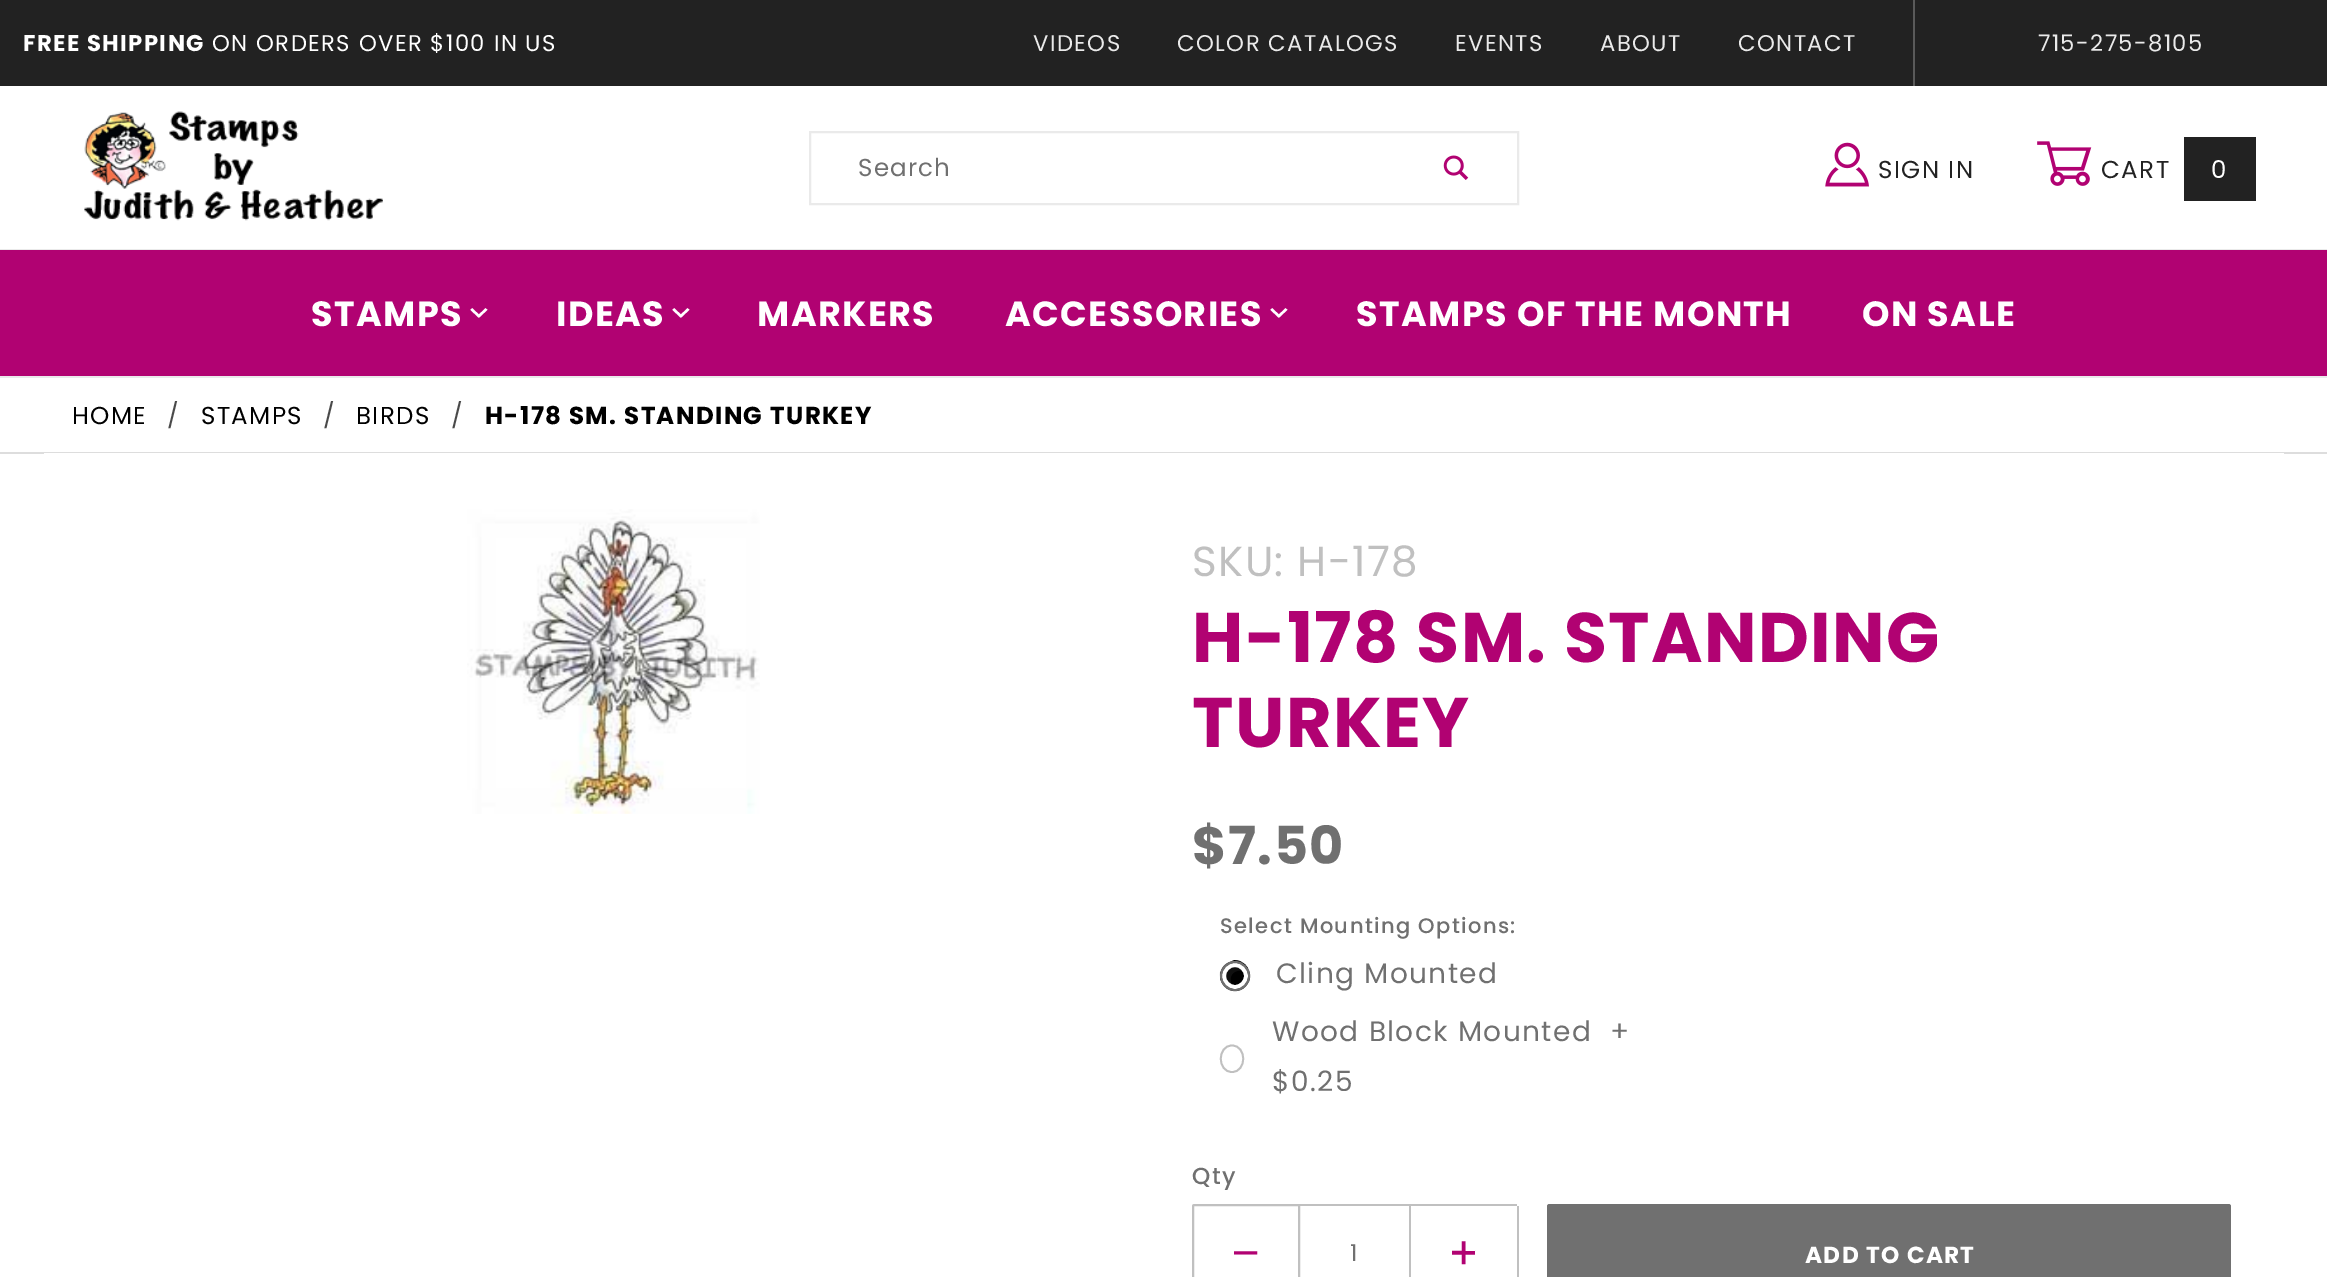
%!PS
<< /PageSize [2327 1277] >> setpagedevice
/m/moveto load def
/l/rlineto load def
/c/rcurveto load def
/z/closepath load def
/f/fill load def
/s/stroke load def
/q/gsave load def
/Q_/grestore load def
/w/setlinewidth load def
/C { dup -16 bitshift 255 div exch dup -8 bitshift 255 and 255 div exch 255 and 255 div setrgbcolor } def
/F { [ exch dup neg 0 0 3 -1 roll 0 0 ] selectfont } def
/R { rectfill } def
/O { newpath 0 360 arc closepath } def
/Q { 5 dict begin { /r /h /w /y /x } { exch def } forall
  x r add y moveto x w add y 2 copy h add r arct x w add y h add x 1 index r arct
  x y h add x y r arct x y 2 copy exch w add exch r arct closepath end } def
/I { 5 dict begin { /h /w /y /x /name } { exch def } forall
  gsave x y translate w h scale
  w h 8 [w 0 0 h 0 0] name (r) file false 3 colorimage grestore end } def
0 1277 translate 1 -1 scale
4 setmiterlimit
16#FFFFFF C
0 0 2327 1277 R
16#EAEAEA C
0 249 2327 1 R
16#222222 C
0 0 2327 86 R
/Poppins-Bold 22.75 F
16#FFFFFF C
23 51 m 1.4 0 (FREE SHIPPING) ashow
/Poppins-Regular 22.75 F
212 51 m 1.4 0 (ON ORDERS OVER $100 IN US) ashow
16#EAEAEA C
1033 51 m 1.4 0 (VIDEOS) ashow
1177 51 m 1.4 0 (COLOR CATALOGS) ashow
1455 51 m 1.4 0 (EVENTS) ashow
1600 51 m 1.4 0 (ABOUT) ashow
1738 51 m 1.4 0 (CONTACT) ashow
16#5A5A5A C
1913 0 2 86 R
16#EAEAEA C
2038 51 m 1.4 0 (715-275-8105) ashow
(1.rgb) 84 111 299 110 I
2 w
810 132 708 72 rectstroke
/Poppins-Regular 24.5 F
16#707070 C
858 176 m 1.25 0 (Search) ashow
(2.rgb) 1443 155 26 25 I
(3.rgb) 1825 142 44 45 I
16#222222 C
1878 178 m 1.4 0 (SIGN IN) ashow
(4.rgb) 2037 141 55 45 I
2101 178 m 1.4 0 (CART) ashow
2184 137 72 64 R
16#FFFFFF C
2211 178 m 1.4 0 (0) ashow
16#B10272 C
0 250 2327 126 R
16#EAEAEA C
0 376 2327 2 R
/Poppins-Bold 35 F
16#FFFFFF C
311 326 m 1.4 0 (STAMPS) ashow
/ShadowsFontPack-Regular 18 F
q 471 304 translate 90 rotate 0 0 m 1.4 0 (3) ashow Q_
/Poppins-Bold 35 F
556 326 m 1.4 0 (IDEAS) ashow
/ShadowsFontPack-Regular 18 F
q 673 304 translate 90 rotate 0 0 m 1.4 0 (3) ashow Q_
/Poppins-Bold 35 F
757 326 m 1.4 0 (MARKERS) ashow
1005 326 m 1.4 0 (ACCESSORIES) ashow
/ShadowsFontPack-Regular 18 F
q 1271 304 translate 90 rotate 0 0 m 1.4 0 (3) ashow Q_
/Poppins-Bold 35 F
1356 326 m 1.4 0 (STAMPS OF THE MONTH) ashow
1862 326 m 1.4 0 (ON SALE) ashow
16#DDDDDD C
0 452 2327 2 R
/Poppins-Regular 24.5 F
16#000000 C
72 424 m 1.4 0 (HOME) ashow
16#4A4A4A C
167 424 m 1.4 0 (/) ashow
16#000000 C
201 424 m 1.4 0 (STAMPS) ashow
16#4A4A4A C
323 424 m 1.4 0 (/) ashow
16#000000 C
356 424 m 1.4 0 (BIRDS) ashow
16#4A4A4A C
451 424 m 1.4 0 (/) ashow
/Poppins-Bold 24.5 F
16#000000 C
485 424 m 1.4 0 (H-178 SM. STANDING TURKEY) ashow
16#FFFFFF C
44 453 2240 1 R
(5.rgb) 467 509 293 305 I
/Poppins-Regular 42 F
16#C0C0C0 C
1192 576 m 1.4 0 (SKU: H-178) ashow
/Poppins-Bold 70 F
16#B10272 C
1192 662 m 1.4 0 (H-178 SM. STANDING) ashow
1192 747 m 1.4 0 (TURKEY) ashow
/Poppins-Bold 52.5 F
16#707070 C
1192 864 m 1.4 0 ($7.50) ashow
/Poppins-Medium 21 F
1220 933 m 1.4 0 (Select Mounting Options:) ashow
16#C0C0C0 C
1234 975 13 O s
16#0F0F0F C
1235 976 15 O f
(6.rgb) 1219 960 30 28 I
16#FFFFFF C
4 w
1235 976 11 O s
16#707070 C
2 w
1235 976 14 O s
/Poppins-Regular 28 F
1276 983 m 1.4 0 (Cling Mounted) ashow
1272 1041 m 1.4 0 (Wood Block Mounted  +) ashow
16#C0C0C0 C
1.8 w
1232 1045.5 m 15 0 15 26.5 0 26.5 c -15 0 -15 -26.5 0 -26.5 c z s
16#707070 C
1272 1091 m 1.4 0 ($0.25) ashow
/Poppins-Medium 23.25 F
1192 1184 m 1.4 0 (Qty) ashow
16#C0C0C0 C
2 w
1194.5 1205 m 104.5 0 l 0 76 l -104.5 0 l -1 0 -1.5 -.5 -1.5 -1.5 c 0 -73 l 0 -1 .5 -1.5 1.5 -1.5 c z s
/ShadowsFontPack-Regular 23.25 F
16#B10272 C
1234 1263 m 1.25 0 (<) ashow
16#C0C0C0 C
1300 1204 217 2 R
1409 1204 2 73 R
/Poppins-Regular 23.25 F
16#707070 C
1350 1261 m 1.25 0 (1) ashow
16#C0C0C0 C
1517 1206 2 71 R
/ShadowsFontPack-Regular 23.25 F
16#B10272 C
1452 1263 m 1.25 0 (=) ashow
16#707070 C
1547 1204 684 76 2.5 Q f
/Poppins-Bold 23.25 F
16#FFFFFF C
1805 1263 m 1.25 0 (ADD TO CART) ashow
showpage
